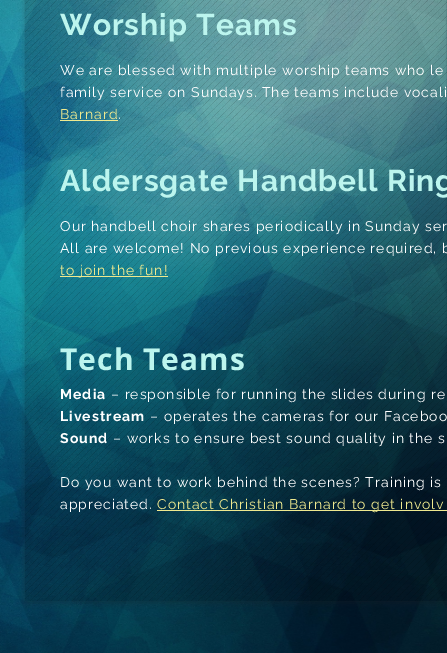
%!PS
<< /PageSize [447 653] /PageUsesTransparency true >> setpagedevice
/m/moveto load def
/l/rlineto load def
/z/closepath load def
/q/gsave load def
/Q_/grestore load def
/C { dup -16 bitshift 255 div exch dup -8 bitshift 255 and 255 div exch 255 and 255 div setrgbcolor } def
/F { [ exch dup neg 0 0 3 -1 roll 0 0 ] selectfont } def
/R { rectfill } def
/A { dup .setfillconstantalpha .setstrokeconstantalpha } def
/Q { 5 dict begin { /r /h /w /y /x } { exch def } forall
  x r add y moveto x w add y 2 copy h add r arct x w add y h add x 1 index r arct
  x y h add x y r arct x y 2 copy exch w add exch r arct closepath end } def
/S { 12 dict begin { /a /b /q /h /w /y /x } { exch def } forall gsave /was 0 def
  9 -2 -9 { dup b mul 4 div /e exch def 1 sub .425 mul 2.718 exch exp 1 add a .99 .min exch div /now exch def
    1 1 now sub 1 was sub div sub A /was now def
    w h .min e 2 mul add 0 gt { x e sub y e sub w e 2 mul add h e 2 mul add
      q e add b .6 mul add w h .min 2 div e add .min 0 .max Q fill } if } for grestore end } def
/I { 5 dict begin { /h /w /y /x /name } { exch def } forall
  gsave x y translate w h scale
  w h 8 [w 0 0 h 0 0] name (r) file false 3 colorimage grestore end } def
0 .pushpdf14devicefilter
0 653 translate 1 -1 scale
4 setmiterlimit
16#FFFFFF C
0 0 447 653 R
(1.rgb) 0 0 447 653 I
q
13 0 m 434 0 l 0 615 l -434 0 l z 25 -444 m 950 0 l 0 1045 l -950 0 l z eoclip newpath
16#1E1E1E C
25 -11 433 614 0 3.5 .28 S
Q_
0.17 A
16#030003 C
25 0 422 601 R
1 A
(2.rgb) 25 0 422 601 I
/Raleway-Bold 30 F
16#BCF5EE C
60 35 m 1 0 (Worship Teams) ashow
/Raleway-Regular 14 F
16#FFFFFF C
60 75 m 1 0 (We are blessed with multiple worship teams who le) ashow
60 97 m 1 0 (family service on Sundays. The teams include vocali) ashow
16#EFE98F C
60 119 m 1 0 (Barnard) ashow
60 120 58 1 R
16#FFFFFF C
118 119 m 1 0 (.) ashow
/Raleway-Bold 30 F
16#BCF5EE C
60 191 m 1 0 (Aldersgate Handbell Ring) ashow
/Raleway-Regular 14 F
16#FFFFFF C
60 231 m 1 0 (Our handbell choir shares periodically in Sunday ser) ashow
60 253 m 1 0 (All are welcome! No previous experience required, b) ashow
16#EFE98F C
60 276 108 1 R
60 275 m 1 0 (to join the fun!) ashow
/OpenSans-Bold 30 F
16#BCF5EE C
60 370 m 1 0 (Tech Teams) ashow
/Raleway-Bold 14 F
16#FFFFFF C
60 399 m 1 0 (Media) ashow
/Raleway-Regular 14 F
111 399 m 1 0 (– responsible for running the slides during re) ashow
/Raleway-Bold 14 F
60 421 m 1 0 (Livestream) ashow
/Raleway-Regular 14 F
150 421 m 1 0 (– operates the cameras for our Faceboo) ashow
/Raleway-Bold 14 F
60 443 m 1 0 (Sound) ashow
/Raleway-Regular 14 F
113 443 m 1 0 (– works to ensure best sound quality in the s) ashow
60 487 m 1 0 (Do you want to work behind the scenes? Training is) ashow
60 509 m 1 0 (appreciated.) ashow
16#EFE98F C
157 510 290 1 R
157 509 m 1 0 (Contact Christian Barnard to get involv) ashow
.poppdf14devicefilter showpage
